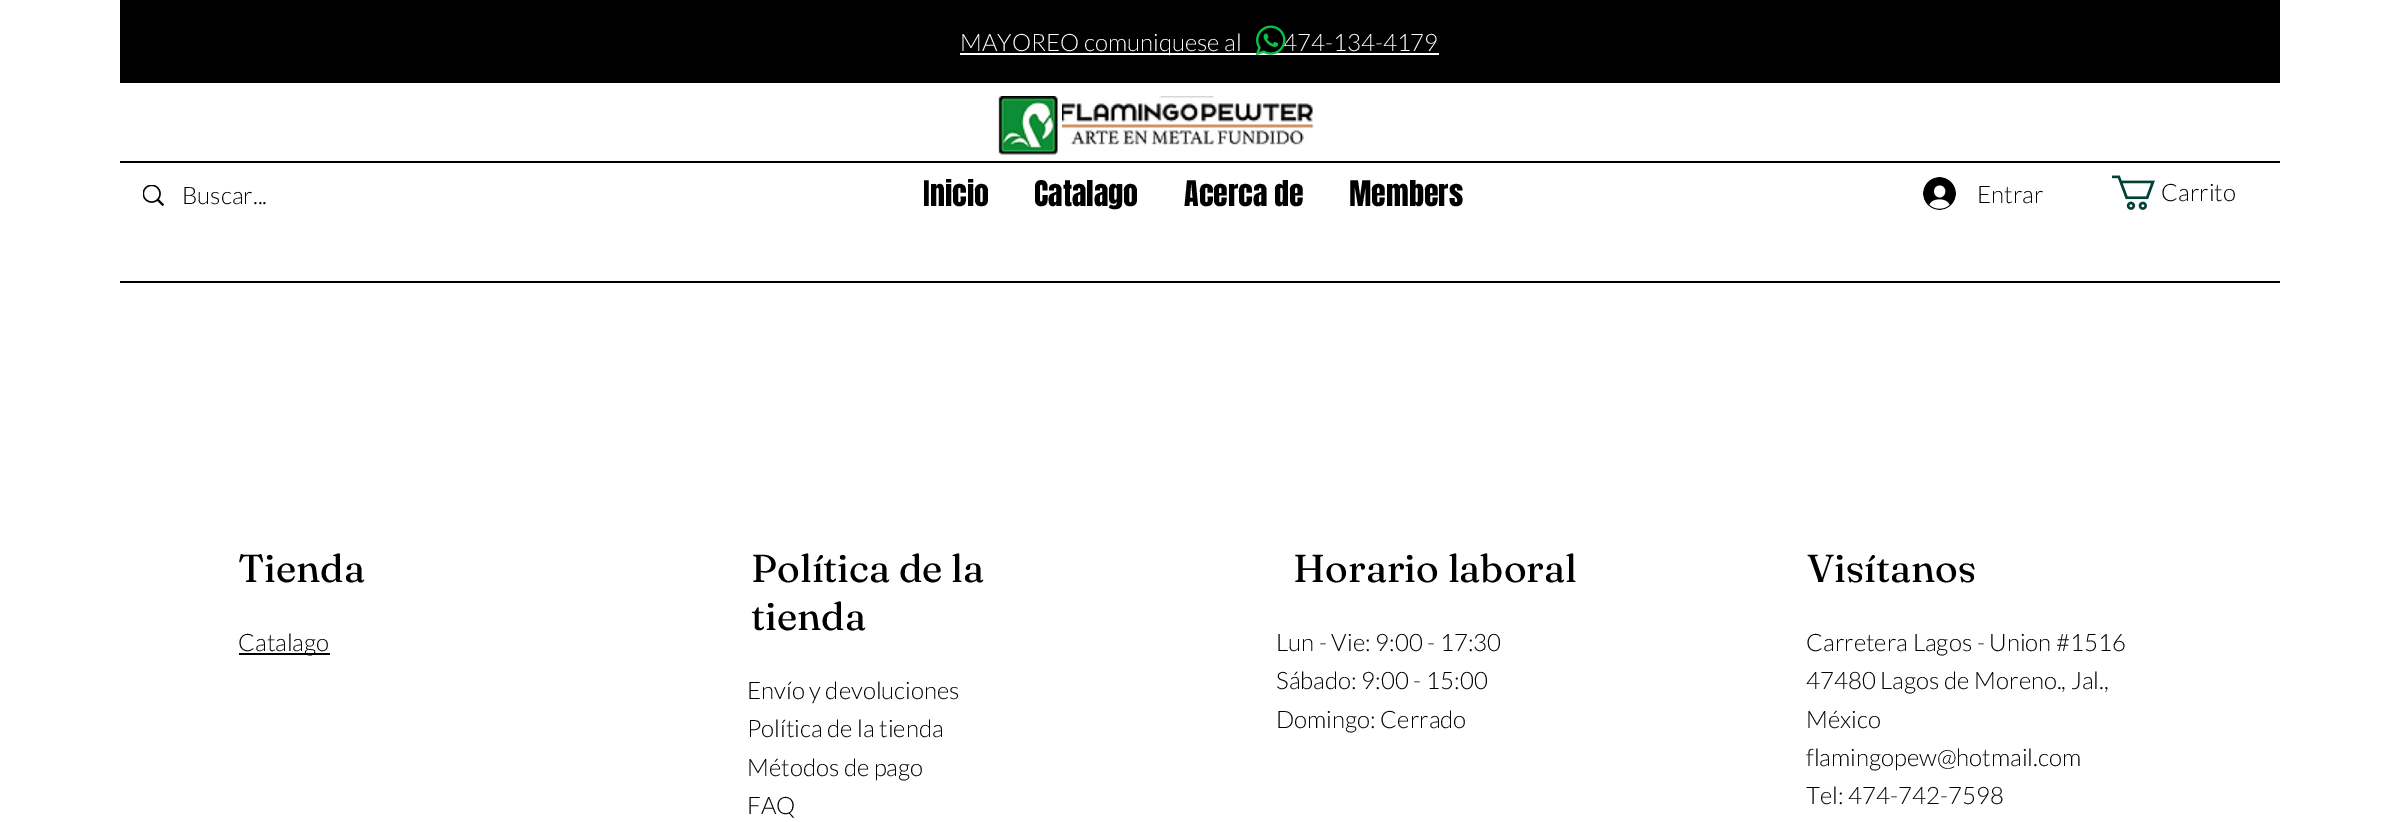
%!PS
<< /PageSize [2399 822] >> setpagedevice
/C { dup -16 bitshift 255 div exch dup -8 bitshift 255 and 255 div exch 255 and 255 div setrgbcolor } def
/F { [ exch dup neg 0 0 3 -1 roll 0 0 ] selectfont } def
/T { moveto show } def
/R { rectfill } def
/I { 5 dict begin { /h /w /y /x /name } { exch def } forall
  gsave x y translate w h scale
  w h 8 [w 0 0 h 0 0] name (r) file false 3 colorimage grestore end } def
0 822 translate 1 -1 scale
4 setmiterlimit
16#FFFFFF C
0 0 2399 822 R
16#000000 C
120 0 2160 83 R
16#FFFFFF C
960 53 479 2 R
/Lato-Light 24 F
(MAYOREO comuniquese al         474-134-4179) 960 51 T
(1.rgb) 1255 25 31 31 I
16#000000 C
120 161 2160 2 R
(2.rgb) 143 185 21 21 I
(Buscar...) 182 204 T
(3.rgb) 998 96 60 59 I
(4.rgb) 1062 96 252 49 I
/Anton-Regular 30 F
(Inicio) 923 206 T
(Catalago) 1034 206 T
(Acerca de) 1184 206 T
(Members) 1349 206 T
(5.rgb) 1923 177 33 33 I
/Lato-Light 24 F
(Entrar) 1977 203 T
(6.rgb) 2112 175 43 35 I
(Carrito) 2161 201 T
120 281 2160 2 R
/Fraunces-Regular 39 F
(Tienda) 238 582 T
239 653 91 2 R
/Lato-Light 24 F
(Catalago) 238 651 T
/Fraunces-Regular 39 F
(Política de la) 751 582 T
(tienda) 751 630 T
/Lato-Light 24 F
(Envío y devoluciones) 747 699 T
(Política de la tienda) 747 737 T
(Métodos de pago) 747 776 T
(FAQ) 747 814 T
/Fraunces-Regular 39 F
(Horario laboral) 1293 582 T
/Lato-Light 24 F
(Lun - Vie: 9:00 - 17:30) 1276 651 T
(Sábado: 9:00 - 15:00) 1276 689 T
(Domingo: Cerrado) 1276 728 T
/Fraunces-Regular 39 F
(Visítanos) 1807 582 T
/Lato-Light 24 F
(Carretera Lagos - Union #1516) 1806 651 T
(47480 Lagos de Moreno., Jal.,) 1806 689 T
(México) 1806 728 T
(flamingopew@hotmail.com) 1806 766 T
(Tel: 474-742-7598) 1806 804 T
showpage
